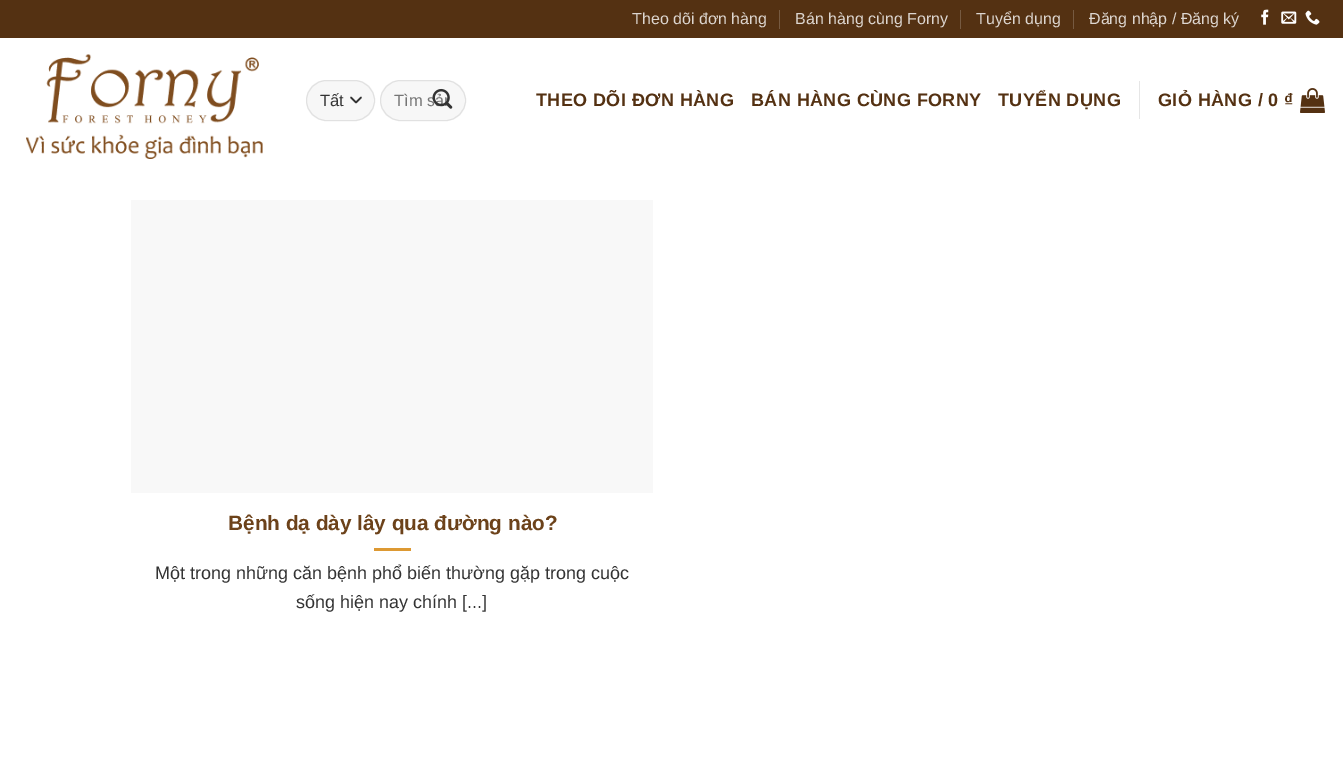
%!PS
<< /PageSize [1343 762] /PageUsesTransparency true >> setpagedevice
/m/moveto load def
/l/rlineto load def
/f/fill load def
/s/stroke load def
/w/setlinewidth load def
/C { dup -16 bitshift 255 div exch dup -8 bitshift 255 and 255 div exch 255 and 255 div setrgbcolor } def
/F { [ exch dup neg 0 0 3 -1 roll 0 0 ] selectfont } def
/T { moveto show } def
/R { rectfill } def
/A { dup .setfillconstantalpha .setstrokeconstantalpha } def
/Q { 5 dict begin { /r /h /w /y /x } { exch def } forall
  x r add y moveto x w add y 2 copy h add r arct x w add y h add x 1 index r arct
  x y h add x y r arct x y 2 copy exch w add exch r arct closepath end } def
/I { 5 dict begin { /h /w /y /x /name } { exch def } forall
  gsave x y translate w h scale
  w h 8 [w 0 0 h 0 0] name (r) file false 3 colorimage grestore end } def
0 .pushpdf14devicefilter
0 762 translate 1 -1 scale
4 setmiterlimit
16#FFFFFF C
0 0 1343 762 R
16#543112 C
0 0 1343 38 R
/LiberationSans-Regular 16 F
16#DDD6D0 C
(Theo dõi đơn hàng) 632 24 T
16#765A41 C
779 10 1 19 R
16#DDD6D0 C
(Bán hàng cùng Forny) 795 24 T
16#765A41 C
960 10 1 19 R
16#DDD6D0 C
(Tuyển dụng) 976 24 T
16#765A41 C
1073 10 1 19 R
16#DDD6D0 C
(Đăng nhập / Đăng ký) 1089 24 T
(1.rgb) 1261 9 8 16 I
(2.rgb) 1281 11 16 13 I
(3.rgb) 1305 10 15 15 I
(4.rgb) 26 54 237 105 I
16#F7F7F7 C
306 80 69 41 20.5 Q f
16#333333 C
1.7 w
1 setlinecap
1 setlinejoin
351 97.5 m 5 5 l 5 -5 l s
0.09 A
16#000000 C
1 w
0 setlinecap
0 setlinejoin
306.5 80.5 68 40 20 Q s
/LiberationSans-Regular 16.5 F
1 A
16#333333 C
(Tất) 320 106 T
16#F7F7F7 C
380 80 86 41 20.5 Q f
0.09 A
16#000000 C
380.5 80.5 85 40 20 Q s
1 A
16#757575 C
(Tìm sả) 394 106 T
(5.rgb) 432 88 21 21 I
/LiberationSans-Bold 18 F
16#543112 C
536 106 m .4 0 (THEO DÕI ĐƠN HÀNG) ashow
751 106 m .4 0 (BÁN HÀNG CÙNG FORNY) ashow
998 106 m .4 0 (TUYỂN DỤNG) ashow
16#E6E6E6 C
1139 81 1 38 R
16#543112 C
1158 106 m .4 0 (GIỎ HÀNG / 0 ₫) ashow
(6.rgb) 1300 88 25 25 I
16#F8F8F8 C
131 200 522 293 R
/LiberationSans-Bold 20.75 F
16#6C421A C
(Bệnh dạ dày lây qua đường nào?) 228 530 T
16#DD9933 C
374 548 37 3 R
/LiberationSans-Regular 18 F
16#333333 C
(Một trong những căn bệnh phổ biến thường gặp trong cuộc) 155 579 T
(sống hiện nay chính [...]) 296 608 T
.poppdf14devicefilter showpage
